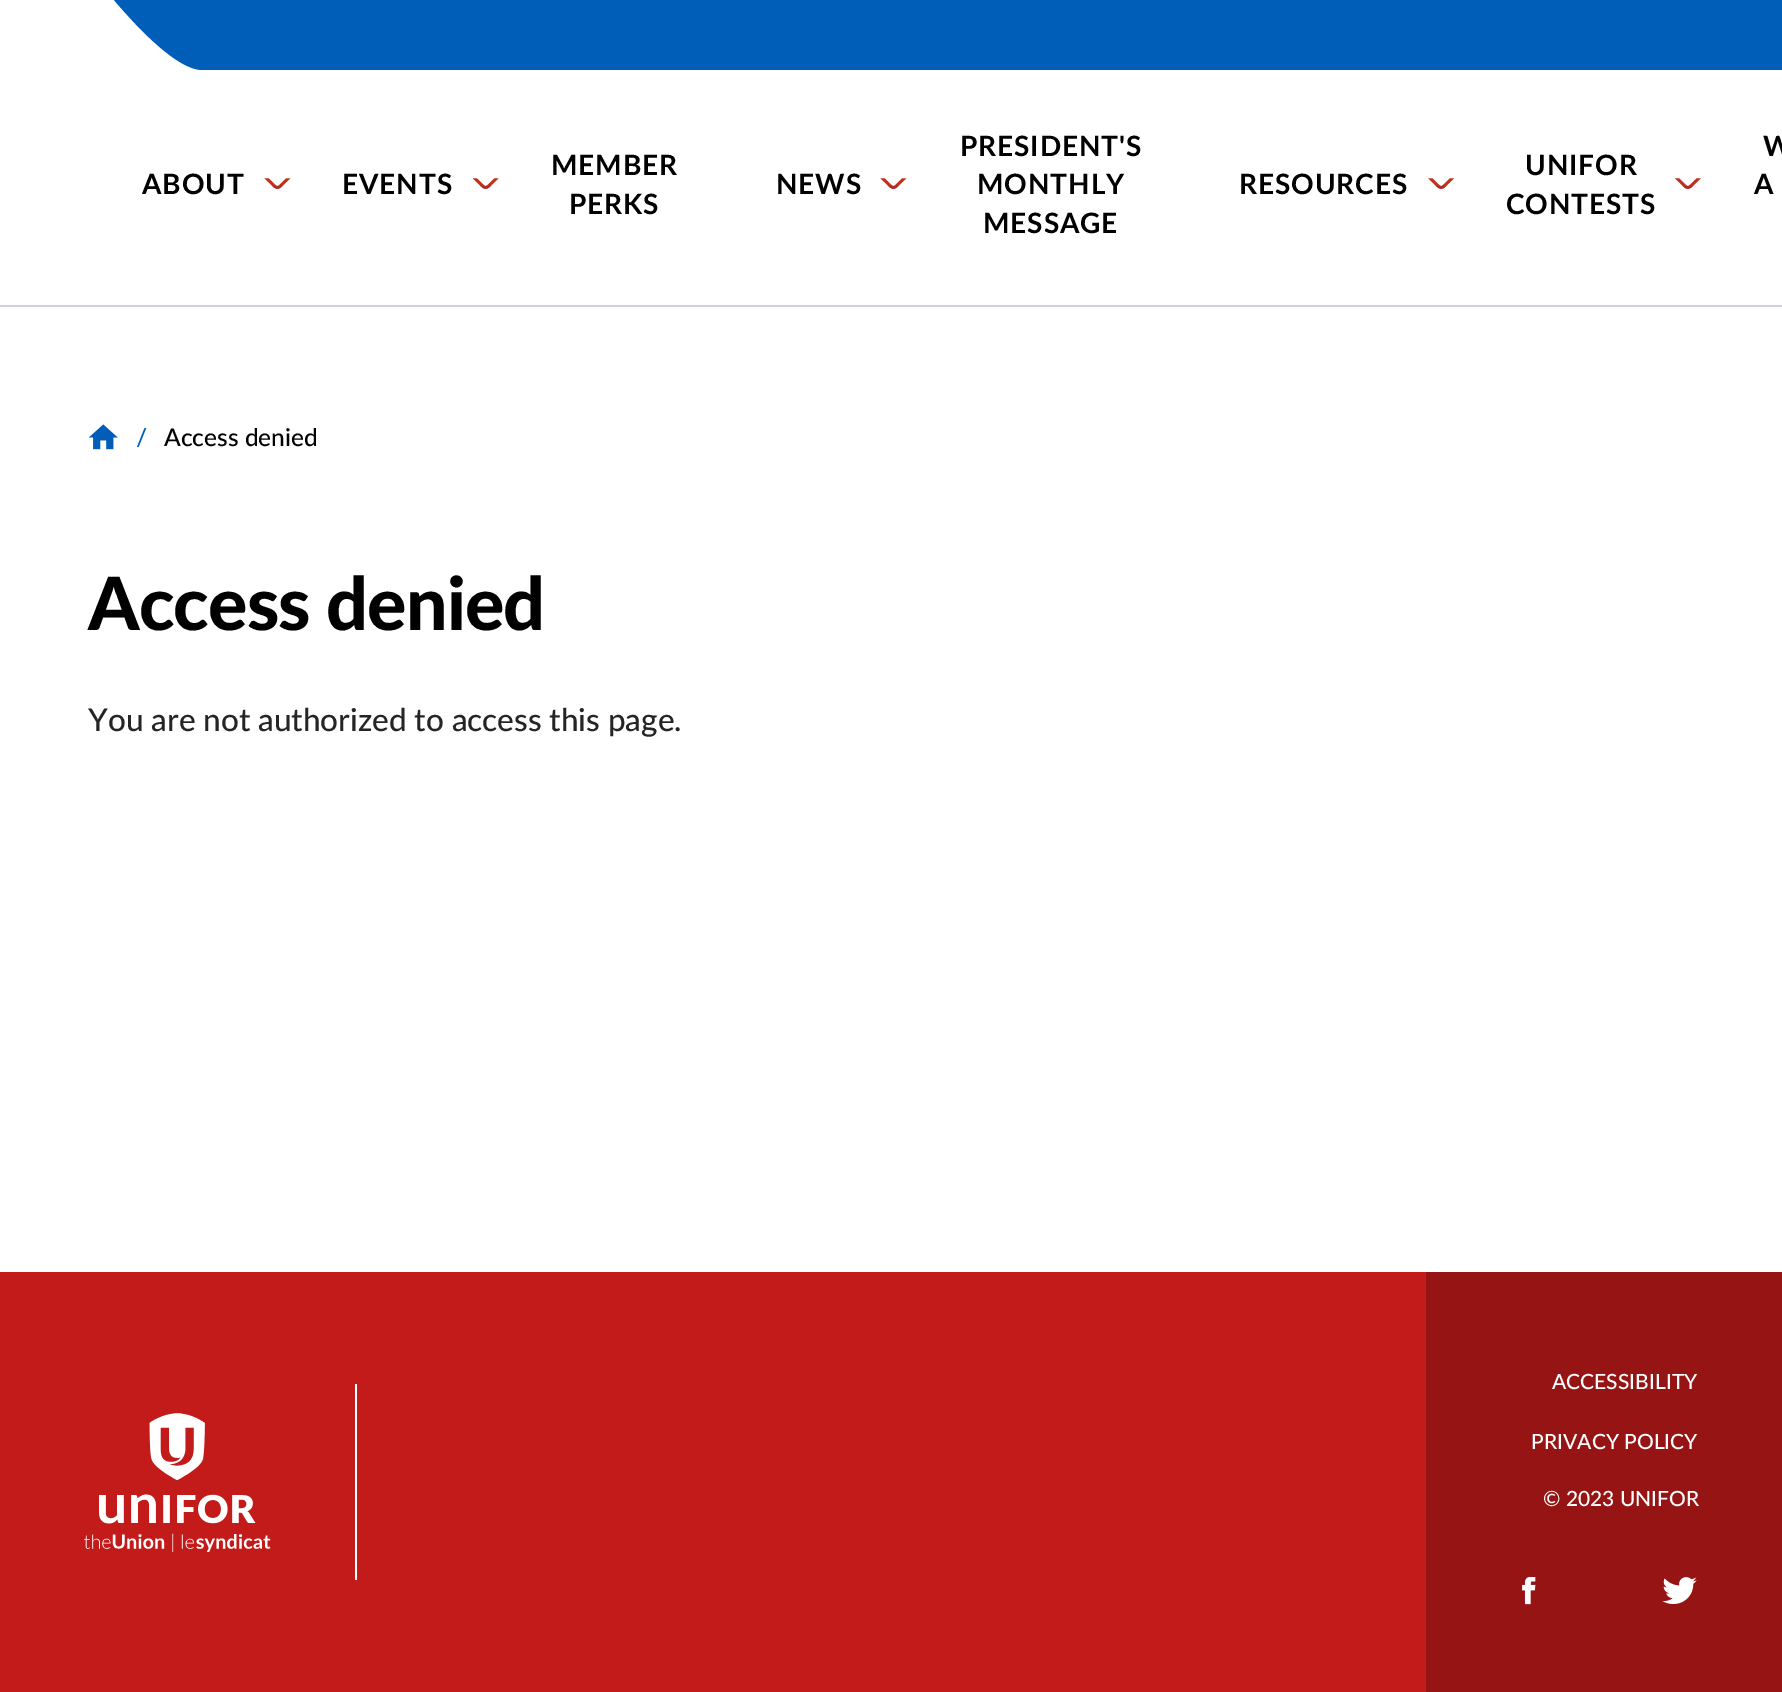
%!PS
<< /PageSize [1782 1692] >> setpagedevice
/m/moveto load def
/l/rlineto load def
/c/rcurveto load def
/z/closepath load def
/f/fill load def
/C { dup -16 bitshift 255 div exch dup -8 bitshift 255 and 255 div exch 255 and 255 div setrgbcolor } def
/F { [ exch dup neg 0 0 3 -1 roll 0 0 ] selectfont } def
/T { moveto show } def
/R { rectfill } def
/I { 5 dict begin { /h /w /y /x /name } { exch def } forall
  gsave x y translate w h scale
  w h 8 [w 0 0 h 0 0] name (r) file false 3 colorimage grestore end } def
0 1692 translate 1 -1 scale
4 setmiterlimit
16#FFFFFF C
0 0 1782 1692 R
16#D0D2D9 C
0 305 1782 2 R
16#005EB8 C
217 0 1565 70 R
217 0 m 0 70 l -16 0 l -18 -1 -48 -24 -87 -70 c z f
/Lato-Bold 28 F
16#000000 C
142 194 m .9 0 (ABOUT) ashow
(1.rgb) 264 178 27 11 I
342 194 m .9 0 (EVENTS) ashow
(2.rgb) 473 178 26 11 I
551 175 m .9 0 (MEMBER) ashow
569 214 m .9 0 (PERKS) ashow
776 194 m .9 0 (NEWS) ashow
(1.rgb) 880 178 27 11 I
960 156 m .9 0 (PRESIDENT'S) ashow
977 194 m .9 0 (MONTHLY) ashow
983 233 m .9 0 (MESSAGE) ashow
1239 194 m .9 0 (RESOURCES) ashow
(3.rgb) 1428 178 26 11 I
1525 175 m .9 0 (UNIFOR) ashow
(4.rgb) 1675 178 26 11 I
1506 214 m .9 0 (CONTESTS) ashow
1763 156 m .9 0 (W) ashow
1754 194 m .9 0 (A) ashow
(5.rgb) 88 424 30 26 I
/Lato-Medium 24.5 F
16#005EB8 C
(/) 136 446 T
16#000000 C
(Access denied) 164 446 T
/Lato-Black 73.5 F
88 630 m -.9 0 (Access denied) ashow
/Lato-Medium 31.5 F
16#252525 C
(You are not authorized to access this page.) 88 731 T
16#C31A1A C
0 1272 1426 420 R
16#FFFFFF C
355 1384 2 196 R
(6.rgb) 84 1413 187 139 I
16#961414 C
1426 1272 356 420 R
/Lato-Medium 21 F
16#FFFFFF C
(ACCESSIBILITY) 1552 1389 T
(PRIVACY POLICY) 1531 1449 T
(© 2023 UNIFOR) 1543 1506 T
(7.rgb) 1522 1577 14 28 I
(8.rgb) 1662 1577 35 27 I
showpage
